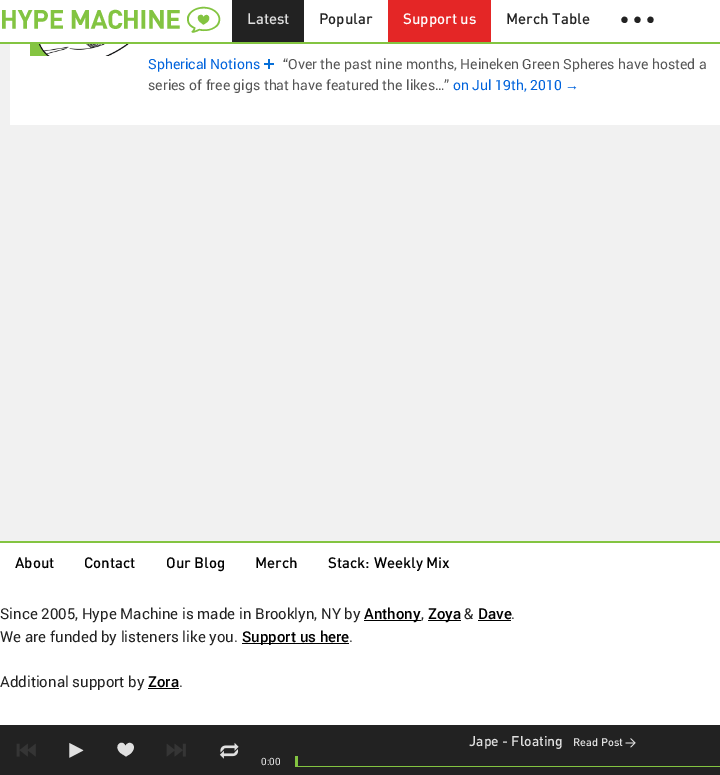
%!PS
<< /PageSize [720 775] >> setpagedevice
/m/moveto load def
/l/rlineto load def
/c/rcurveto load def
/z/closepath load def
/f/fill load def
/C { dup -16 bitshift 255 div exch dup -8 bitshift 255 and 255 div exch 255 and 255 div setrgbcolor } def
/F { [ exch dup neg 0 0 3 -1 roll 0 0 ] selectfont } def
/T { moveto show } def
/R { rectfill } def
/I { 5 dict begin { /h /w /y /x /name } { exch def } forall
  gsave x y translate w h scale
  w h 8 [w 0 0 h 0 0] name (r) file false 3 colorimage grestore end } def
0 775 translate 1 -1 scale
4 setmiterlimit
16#F1F1F1 C
0 0 720 775 R
16#FFFFFF C
0 0 720 42 R
16#83C441 C
0 42 720 2 R
/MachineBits-Regular 38 F
(1) 0 28 T
16#222222 C
232 0 72 42 R
/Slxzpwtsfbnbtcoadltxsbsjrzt-Medium 15 F
16#E0E0E0 C
(Latest) 247 24 T
16#222222 C
(Popular) 319 24 T
16#E42626 C
388 0 103 42 R
16#FFFFFF C
(Support us) 403 24 T
16#222222 C
(Merch Table) 506 24 T
/LiberationSerif-Bold 15 F
(● ● ●) 620 24 T
16#FFFFFF C
10 44 710 81 R
(1.rgb) 30 44 100 12 I
/Roboto-Regular 14 F
16#0063DC C
(Spherical Notions) 148 69 T
(2.rgb) 264 59 10 10 I
16#555555 C
(“Over the past nine months, Heineken Green Spheres have hosted a) 283 69 T
(series of free gigs that have featured the likes…”) 148 90 T
16#0063DC C
(on Jul 19th, 2010) 453 90 T
/LiberationSans-Regular 14 F
(→) 565 90 T
16#FFFFFF C
0 543 720 182 R
16#83C441 C
0 541 720 2 R
/Slxzpwtsfbnbtcoadltxsbsjrzt-Medium 15 F
16#000000 C
(About) 15 568 T
(Contact) 84 568 T
(Our Blog) 166 568 T
(Merch) 255 568 T
(Stack: Weekly Mix) 328 568 T
/Roboto-Regular 15 F
16#222222 C
(Since 2005, Hype Machine is made in Brooklyn, NY by) 0 619 T
16#000000 C
364 620 57 1 R
/Roboto-Medium 15 F
(Anthony) 364 619 T
/Roboto-Regular 15 F
16#222222 C
(,) 421 619 T
16#000000 C
428 620 33 1 R
/Roboto-Medium 15 F
(Zoya) 428 619 T
/Roboto-Regular 15 F
16#222222 C
(&) 464 619 T
/Roboto-Medium 15 F
16#000000 C
(Dave) 478 619 T
478 620 33 1 R
/Roboto-Regular 15 F
16#222222 C
(.) 511 619 T
(We are funded by listeners like you.) 0 642 T
16#000000 C
242 643 107 1 R
/Roboto-Medium 15 F
(Support us here) 242 642 T
/Roboto-Regular 15 F
16#222222 C
(.) 349 642 T
(Additional support by) 0 687 T
/Roboto-Medium 15 F
16#000000 C
(Zora) 148 687 T
148 688 31 1 R
/Roboto-Regular 15 F
16#222222 C
(.) 179 687 T
0 725 720 50 R
(3.rgb) 16 743 20 14 I
(4.rgb) 69 743 15 15 I
16#E0E0E0 C
125.5 746 m 3.5 -7.5 14 0 4.5 8 c -4 2.5 l -5.5 -3.5 l -8 -7.5 2 -14.5 5 -7 c z f
(5.rgb) 166 743 20 14 I
(6.rgb) 219 742 20 17 I
/Slxzpwtsfbnbtcoadltxsbsjrzt-Medium 14 F
(Jape - Floating) 469 746 T
/Slxzpwtsfbnbtcoadltxsbsjrzt-Medium 11 F
(Read Post →) 573 746 T
/Roboto-Regular 10 F
(0:00) 261 765 T
16#83C441 C
295 766 425 1 R
295 756 3 10 R
showpage
